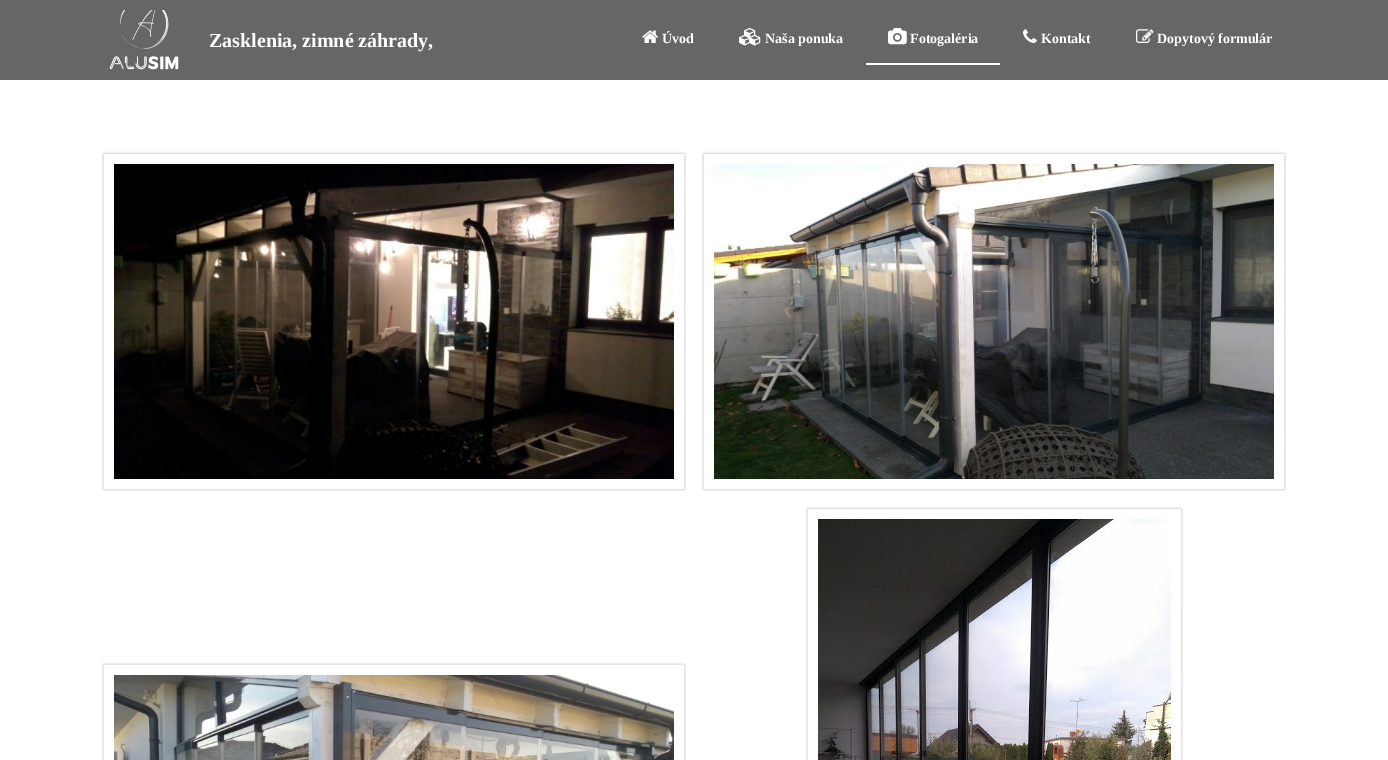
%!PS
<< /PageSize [1388 760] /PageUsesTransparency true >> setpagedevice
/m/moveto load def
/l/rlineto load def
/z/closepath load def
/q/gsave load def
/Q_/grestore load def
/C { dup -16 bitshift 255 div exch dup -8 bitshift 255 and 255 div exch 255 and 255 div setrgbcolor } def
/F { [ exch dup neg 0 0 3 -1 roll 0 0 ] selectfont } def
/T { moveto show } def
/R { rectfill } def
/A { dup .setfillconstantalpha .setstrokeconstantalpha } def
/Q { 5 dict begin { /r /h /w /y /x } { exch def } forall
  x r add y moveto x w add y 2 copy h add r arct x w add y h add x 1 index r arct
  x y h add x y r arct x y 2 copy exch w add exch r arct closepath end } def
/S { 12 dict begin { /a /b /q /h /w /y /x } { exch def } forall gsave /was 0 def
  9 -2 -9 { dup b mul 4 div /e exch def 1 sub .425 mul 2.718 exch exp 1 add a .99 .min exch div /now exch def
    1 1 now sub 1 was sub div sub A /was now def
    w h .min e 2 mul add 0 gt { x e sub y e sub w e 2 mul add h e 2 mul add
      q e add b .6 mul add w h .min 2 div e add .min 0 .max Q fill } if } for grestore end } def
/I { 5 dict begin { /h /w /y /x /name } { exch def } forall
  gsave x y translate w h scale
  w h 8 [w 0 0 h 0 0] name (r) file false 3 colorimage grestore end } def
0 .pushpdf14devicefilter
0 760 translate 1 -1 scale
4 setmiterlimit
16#FFFFFF C
0 0 1388 760 R
16#666666 C
0 0 1388 80 R
(1.rgb) 109 10 70 60 I
/LiberationSerif-Bold 20 F
16#FFFFFF C
(Zasklenia, zimné záhrady,) 209 47 T
(2.rgb) 642 30 16 13 I
/LiberationSerif-Bold 14 F
(Úvod) 662 43 T
(3.rgb) 739 28 22 18 I
(Naša ponuka) 765 43 T
866 63 134 2 R
(4.rgb) 888 28 19 17 I
(Fotogaléria) 910 43 T
(5.rgb) 1023 29 14 14 I
(Kontakt) 1041 43 T
(6.rgb) 1136 29 18 14 I
(Dopytový formulár) 1157 43 T
q
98 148 m 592 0 l 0 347 l -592 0 l z 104 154 m 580 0 l 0 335 l -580 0 l z eoclip newpath
16#000000 C
104 154 580 335 0 1.5 .3 S
Q_
(7.rgb) 114 164 560 315 I
q
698 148 m 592 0 l 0 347 l -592 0 l z 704 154 m 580 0 l 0 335 l -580 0 l z eoclip newpath
16#000000 C
704 154 580 335 0 1.5 .3 S
Q_
(8.rgb) 714 164 560 315 I
q
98 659 m 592 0 l 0 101 l -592 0 l z 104 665 m 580 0 l 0 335 l -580 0 l z eoclip newpath
16#000000 C
104 665 580 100 0 1.5 .3 S
Q_
(9.rgb) 114 675 560 85 I
q
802 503 m 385 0 l 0 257 l -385 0 l z 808 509 m 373 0 l 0 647 l -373 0 l z eoclip newpath
16#000000 C
808 509 373 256 0 1.5 .3 S
Q_
(10.rgb) 818 519 353 241 I
.poppdf14devicefilter showpage
